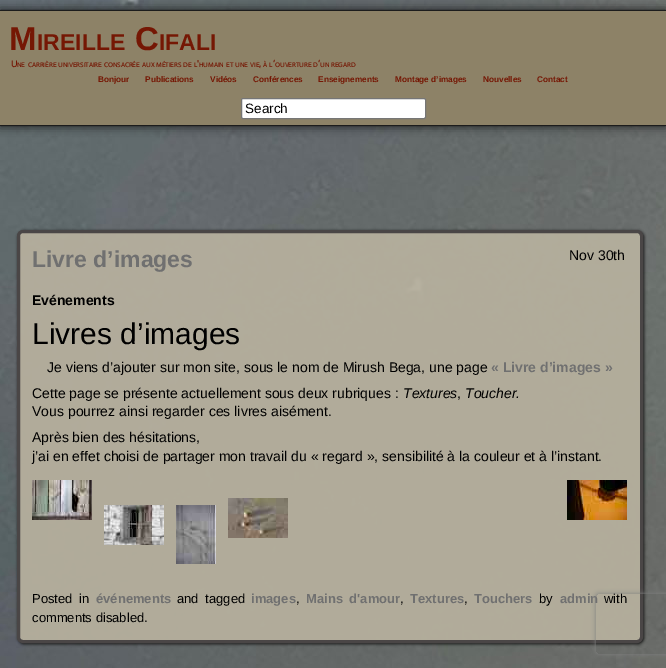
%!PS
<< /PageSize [666 668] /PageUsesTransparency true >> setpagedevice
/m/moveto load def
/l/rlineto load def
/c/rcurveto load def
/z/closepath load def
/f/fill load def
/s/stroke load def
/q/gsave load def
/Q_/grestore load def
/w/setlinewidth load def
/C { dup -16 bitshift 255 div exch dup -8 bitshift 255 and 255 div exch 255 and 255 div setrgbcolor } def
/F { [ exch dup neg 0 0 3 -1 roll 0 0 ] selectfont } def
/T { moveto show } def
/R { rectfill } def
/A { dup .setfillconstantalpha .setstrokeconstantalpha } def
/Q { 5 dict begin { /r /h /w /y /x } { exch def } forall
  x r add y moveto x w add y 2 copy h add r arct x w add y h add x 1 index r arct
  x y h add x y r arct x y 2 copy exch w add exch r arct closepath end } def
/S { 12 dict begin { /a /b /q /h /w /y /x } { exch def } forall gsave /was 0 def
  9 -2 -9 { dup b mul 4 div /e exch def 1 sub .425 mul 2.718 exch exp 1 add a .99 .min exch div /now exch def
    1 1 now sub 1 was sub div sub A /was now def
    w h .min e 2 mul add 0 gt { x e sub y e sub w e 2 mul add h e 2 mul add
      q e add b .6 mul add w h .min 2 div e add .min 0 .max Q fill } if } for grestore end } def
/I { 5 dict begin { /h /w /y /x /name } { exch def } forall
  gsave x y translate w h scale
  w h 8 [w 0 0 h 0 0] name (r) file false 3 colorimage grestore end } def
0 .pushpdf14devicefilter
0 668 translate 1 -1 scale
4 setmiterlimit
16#FFFFFF C
0 0 666 668 R
(1.rgb) 0 0 666 668 I
16#111111 C
0 10 666 116 0 5 1 S
16#8D8267 C
0 11 666 114 R
16#1C1C1C C
0 10 666 1 R
0 125 666 1 R
/LiberationSans-Bold 33 F
16#751704 C
(M) 9 50 T
/LiberationSans-Bold 23 F
(IREILLE) 37 50 T
/LiberationSans-Bold 33 F
(C) 135 50 T
/LiberationSans-Bold 23 F
(IFALI) 159 50 T
/Actor-Bold 9 F
(U) 11 67 T
/Actor-Bold 6.5 F
(NE) 17 67 T
(CARRIÈRE) 28 67 T
(UNIVERSITAIRE) 58 67 T
(CONSACRÉE) 104 67 T
(AUX) 142 67 T
(MÉTIERS) 156 67 T
(DE) 183 67 T
(L) 194 67 T
/Actor-Bold 9 F
(') 197 67 T
/Actor-Bold 6.5 F
(HUMAIN) 199 67 T
(ET) 226 67 T
(UNE) 235 67 T
(VIE) 250 67 T
(À) 263 67 T
(L) 269 67 T
/Actor-Bold 9 F
(’) 273 67 T
(’) 318 67 T
(,) 259 67 T
/Actor-Bold 6.5 F
(OUVERTURE) 275 67 T
(D) 313 67 T
(UN) 320 67 T
(REGARD) 331 67 T
/LiberationSans-Bold 8.25 F
(Bonjour) 98 82 T
(Publications) 145 82 T
(Vidéos) 210 82 T
(Conférences) 253 82 T
(Enseignements) 318 82 T
(Montage d’images) 395 82 T
(Nouvelles) 483 82 T
(Contact) 537 82 T
16#FFFFFF C
241.5 98.5 184 20 1.5 Q q f Q_
16#767676 C
s
/LiberationSans-Regular 13.5 F
16#000000 C
(Search) 245 113 T
q
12 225 m 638 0 l 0 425 l -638 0 l z 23 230 m 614 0 l 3.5 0 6 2.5 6 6 c 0 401 l 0 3.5 -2.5 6 -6 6 c -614 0 l -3.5 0 -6 -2.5 -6 -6 c 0 -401 l 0 -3.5 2.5 -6 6 -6 c z eoclip newpath
16#111111 C
18 231 626 413 6 1.5 1 S
Q_
0.95 A
16#B5AF9D C
18.5 231.5 623 410 4.5 Q f
1 A
16#4A4646 C
3 w
18.5 231.5 623 410 4.5 Q s
/LiberationSans-Bold 23 F
16#707070 C
(Livre d’images) 32 267 T
/LiberationSans-Regular 14 F
16#000000 C
(Nov 30th) 569 260 T
/LiberationSans-Bold 14 F
(Evénements) 32 305 T
/LiberationSans-Regular 30 F
(Livres d’images) 32 344 T
/LiberationSans-Regular 14 F
(Je viens d’ajouter sur mon site, sous le nom de Mirush Bega, une page) 47 372 T
/LiberationSans-Bold 14 F
16#707070 C
(« Livre d’images ») 491 372 T
/LiberationSans-Regular 14 F
16#000000 C
(Cette page se présente actuellement sous deux rubriques :) 32 398 T
/LiberationSans-Italic 14 F
(Textures) 403 398 T
/LiberationSans-Regular 14 F
(,) 457 398 T
/LiberationSans-Italic 14 F
(Toucher.) 465 398 T
/LiberationSans-Regular 14 F
(Vous pourrez ainsi regarder ces livres aisément.) 32 416 T
(Après bien des hésitations,) 32 442 T
(j’ai en effet choisi de partager mon travail du « regard », sensibilité à la couleur et à l’instant.) 32 461 T
(2.rgb) 32 480 60 40 I
(3.rgb) 567 480 60 40 I
(4.rgb) 104 505 60 40 I
(5.rgb) 176 505 40 59 I
(6.rgb) 228 498 60 40 I
/LiberationSans-Regular 13 F
32 603 m 3 0 32 (Posted in) widthshow
/LiberationSans-Bold 13 F
16#707070 C
(événements) 96 603 T
/LiberationSans-Regular 13 F
16#000000 C
177 603 m 3 0 32 (and tagged) widthshow
/LiberationSans-Bold 13 F
16#707070 C
(images) 251 603 T
/LiberationSans-Regular 13 F
16#000000 C
(,) 296 603 T
/LiberationSans-Bold 13 F
16#707070 C
306 603 m 3 0 32 (Mains d'amour) widthshow
/LiberationSans-Regular 13 F
16#000000 C
(,) 400 603 T
/LiberationSans-Bold 13 F
16#707070 C
(Textures) 410 603 T
/LiberationSans-Regular 13 F
16#000000 C
(,) 464 603 T
/LiberationSans-Bold 13 F
16#707070 C
(Touchers) 474 603 T
/LiberationSans-Regular 13 F
16#000000 C
(by) 539 603 T
/LiberationSans-Bold 13 F
16#707070 C
(admin) 560 603 T
/LiberationSans-Regular 13 F
16#000000 C
(with) 604 603 T
(comments disabled.) 32 622 T
q
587 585 m 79 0 l 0 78 l -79 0 l z 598 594 m 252 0 l 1 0 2 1 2 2 c 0 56 l 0 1 -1 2 -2 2 c -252 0 l -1 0 -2 -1 -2 -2 c 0 -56 l 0 -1 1 -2 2 -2 c z eoclip newpath
16#808080 C
596 594 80 60 2 2.5 1 S
Q_
.poppdf14devicefilter showpage
